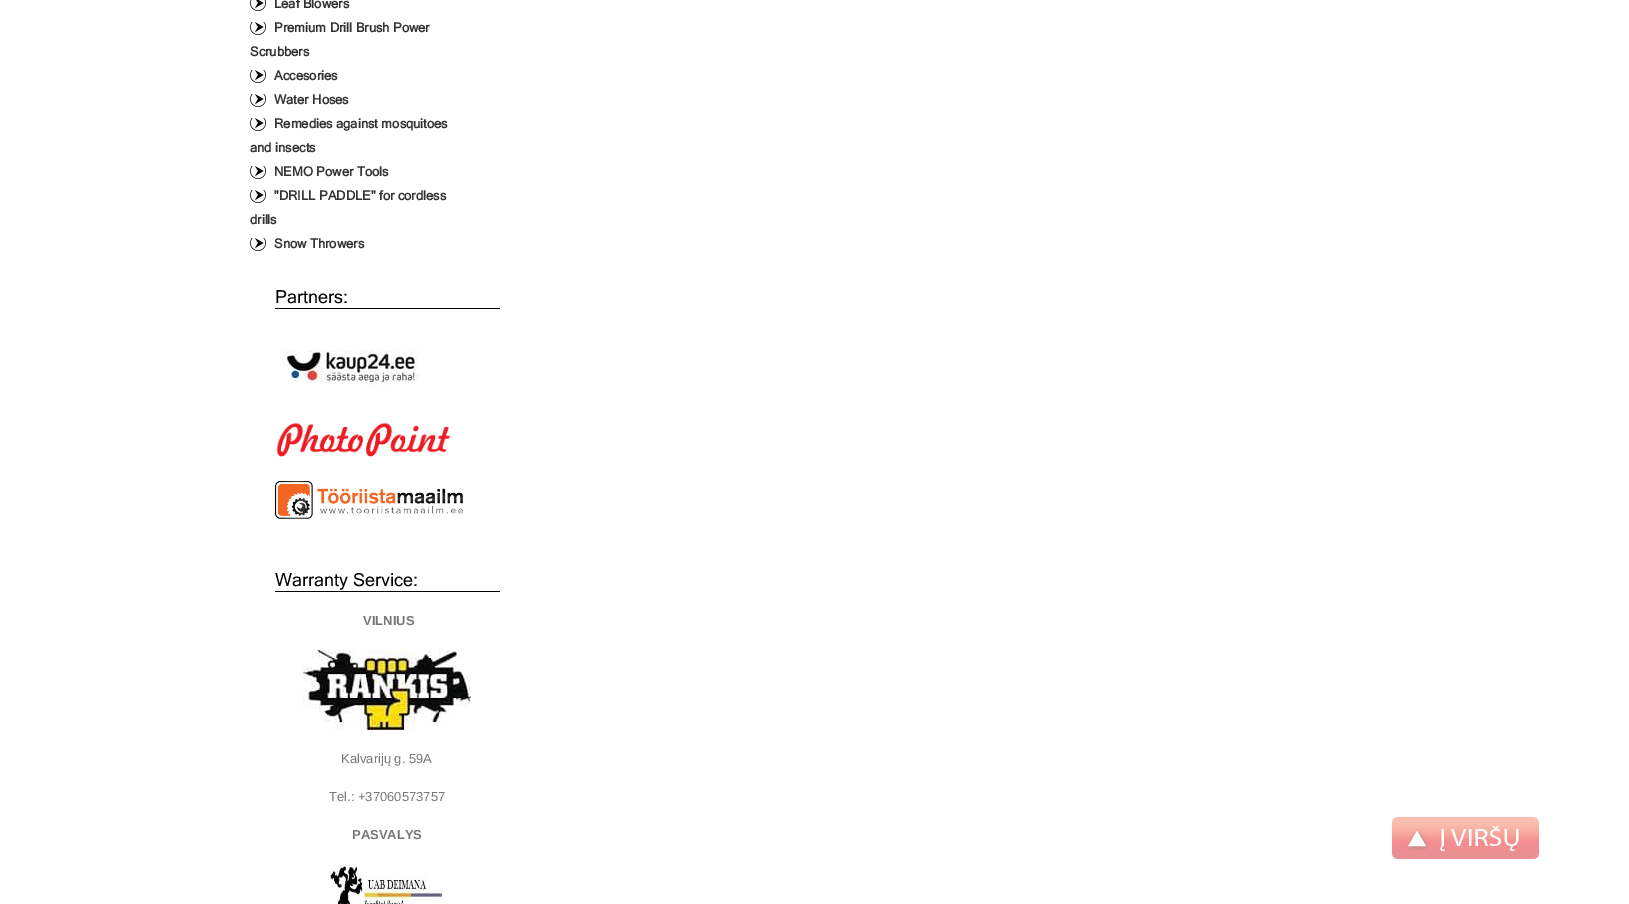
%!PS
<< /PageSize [1629 904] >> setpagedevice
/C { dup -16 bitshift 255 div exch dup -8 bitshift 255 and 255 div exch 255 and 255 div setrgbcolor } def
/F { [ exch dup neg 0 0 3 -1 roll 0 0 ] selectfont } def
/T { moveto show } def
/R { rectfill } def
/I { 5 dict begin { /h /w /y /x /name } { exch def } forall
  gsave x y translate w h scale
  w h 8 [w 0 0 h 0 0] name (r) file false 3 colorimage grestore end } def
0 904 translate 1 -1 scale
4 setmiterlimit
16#FFFFFF C
0 0 1629 904 R
(1.rgb) 250 0 16 11 I
/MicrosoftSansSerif-Bold 13 F
16#333333 C
(Leaf Blowers) 274 8 T
(2.rgb) 250 22 16 13 I
(Premium Drill Brush Power) 274 32 T
(Scrubbers) 250 56 T
(2.rgb) 250 70 16 13 I
(Accesories) 274 80 T
(2.rgb) 250 94 16 13 I
(Water Hoses) 274 104 T
(2.rgb) 250 118 16 13 I
(Remedies against mosquitoes) 274 128 T
(and insects) 250 152 T
(2.rgb) 250 166 16 13 I
(NEMO Power Tools) 274 176 T
(2.rgb) 250 190 16 13 I
("DRILL PADDLE" for cordless) 274 200 T
(drills) 250 224 T
(2.rgb) 250 238 16 13 I
(Snow Throwers) 274 248 T
16#000000 C
275 308 225 1 R
/MicrosoftSansSerif-Regular 18 F
(Partners:) 275 303 T
(3.rgb) 283 350 136 39 I
(4.rgb) 276 423 174 34 I
(5.rgb) 275 481 188 38 I
275 591 225 1 R
(Warranty Service:) 275 586 T
/LiberationSans-Bold 13 F
16#777777 C
(VILNIUS) 363 625 T
(6.rgb) 303 650 168 80 I
/LiberationSans-Regular 13 F
(Kalvarijų g. 59A) 341 763 T
(Tel.: +37060573757) 329 801 T
/LiberationSans-Bold 13 F
(PASVALYS) 352 839 T
(7.rgb) 330 864 114 40 I
(8.rgb) 1392 817 147 42 I
showpage
